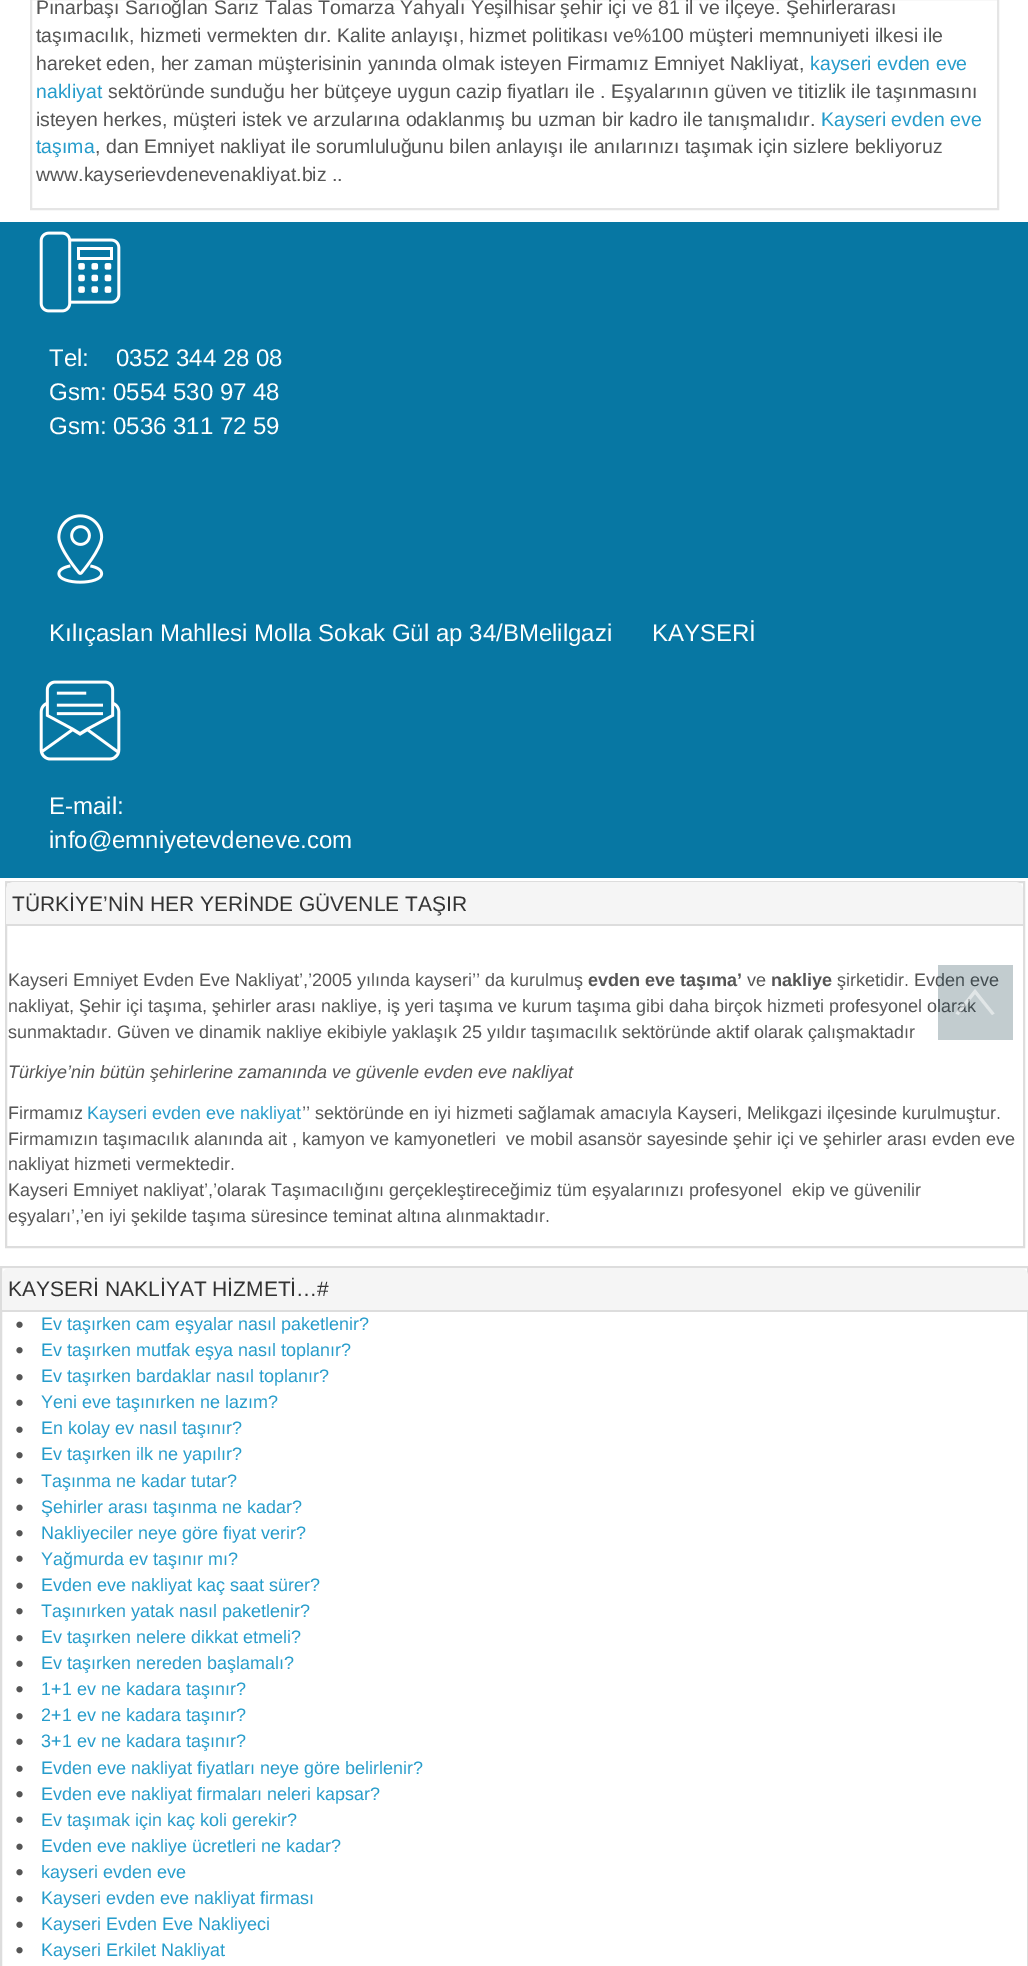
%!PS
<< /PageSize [1028 1966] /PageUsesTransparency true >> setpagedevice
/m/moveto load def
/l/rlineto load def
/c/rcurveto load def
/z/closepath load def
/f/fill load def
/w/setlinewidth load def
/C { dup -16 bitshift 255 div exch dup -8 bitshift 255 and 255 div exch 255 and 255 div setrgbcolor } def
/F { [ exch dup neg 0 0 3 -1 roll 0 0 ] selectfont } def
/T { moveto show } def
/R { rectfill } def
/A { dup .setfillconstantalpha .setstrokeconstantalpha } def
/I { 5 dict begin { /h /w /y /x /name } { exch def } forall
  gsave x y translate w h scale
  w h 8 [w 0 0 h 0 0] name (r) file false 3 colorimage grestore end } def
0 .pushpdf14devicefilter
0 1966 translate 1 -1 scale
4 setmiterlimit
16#FFFFFF C
0 0 1028 1966 R
16#E5E5E5 C
2 w
31 -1 967 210 rectstroke
/LiberationSans-Regular 19.5 F
16#555555 C
(Pınarbaşı Sarıoğlan Sarız Talas Tomarza Yahyalı Yeşilhisar şehir içi ve 81 il ve ilçeye. Şehirlerarası) 36 14 T
(taşımacılık, hizmeti vermekten dır. Kalite anlayışı, hizmet politikası ve%100 müşteri memnuniyeti ilkesi ile) 36 42 T
(hareket eden, her zaman müşterisinin yanında olmak isteyen Firmamız Emniyet Nakliyat,) 36 70 T
16#269CCB C
(kayseri evden eve) 810 70 T
(nakliyat) 36 98 T
16#555555 C
(sektöründe sunduğu her bütçeye uygun cazip fiyatları ile . Eşyalarının güven ve titizlik ile taşınmasını) 108 98 T
(isteyen herkes, müşteri istek ve arzularına odaklanmış bu uzman bir kadro ile tanışmalıdır.) 36 126 T
16#269CCB C
(Kayseri evden eve) 821 126 T
(taşıma) 36 153 T
16#555555 C
(, dan Emniyet nakliyat ile sorumluluğunu bilen anlayışı ile anılarınızı taşımak için sizlere bekliyoruz) 95 153 T
(www.kayserievdenevenakliyat.biz ..) 36 181 T
16#0777A3 C
0 222 1028 656 R
(1.rgb) 39 231 82 82 I
/LiberationSans-Regular 24 F
16#FFFFFF C
(Tel:) 49 366 T
(0352 344 28 08) 116 366 T
(Gsm: 0554 530 97 48) 49 400 T
(Gsm: 0536 311 72 59) 49 434 T
(2.rgb) 57 514 47 70 I
(Kılıçaslan Mahllesi Molla Sokak Gül ap 34/BMelilgazi      KAYSERİ) 49 641 T
(3.rgb) 39 680 82 81 I
(E-mail:) 49 814 T
(info@emniyetevdeneve.com) 49 848 T
16#DDDDDD C
6 882 1018 365 rectstroke
16#F5F5F5 C
14 882 m 1001 0 l 4.5 0 8 3.5 8 8 c 0 36 l -1017 0 l 0 -36 l 0 -4.5 3.5 -8 8 -8 c z f
16#DDDDDD C
6 924 1017 2 R
/LiberationSans-Regular 21 F
16#333333 C
(TÜRKİYE’NİN HER YERİNDE GÜVENLE TAŞIR) 12 911 T
/LiberationSans-Regular 18 F
16#555555 C
(Kayseri Emniyet Evden Eve Nakliyat’,’2005 yılında kayseri’’ da kurulmuş) 8 986 T
/LiberationSans-Bold 18 F
(evden eve taşıma’) 588 986 T
/LiberationSans-Regular 18 F
(ve) 747 986 T
/LiberationSans-Bold 18 F
(nakliye) 771 986 T
/LiberationSans-Regular 18 F
(şirketidir. Evden eve) 837 986 T
(nakliyat, Şehir içi taşıma, şehirler arası nakliye, iş yeri taşıma ve kurum taşıma gibi daha birçok hizmeti profesyonel olarak) 8 1012 T
(sunmaktadır. Güven ve dinamik nakliye ekibiyle yaklaşık 25 yıldır taşımacılık sektöründe aktif olarak çalışmaktadır) 8 1038 T
/LiberationSans-Italic 18 F
(Türkiye’nin bütün şehirlerine zamanında ve güvenle evden eve nakliyat) 8 1078 T
/LiberationSans-Regular 18 F
(Firmamız) 8 1119 T
16#269CCB C
(Kayseri evden eve nakliyat) 87 1119 T
16#555555 C
(’’ sektöründe en iyi hizmeti sağlamak amacıyla Kayseri, Melikgazi ilçesinde kurulmuştur.) 302 1119 T
(Firmamızın taşımacılık alanında ait , kamyon ve kamyonetleri  ve mobil asansör sayesinde şehir içi ve şehirler arası evden eve) 8 1145 T
(nakliyat hizmeti vermektedir.) 8 1170 T
(Kayseri Emniyet nakliyat’,’olarak Taşımacılığını gerçekleştireceğimiz tüm eşyalarınızı profesyonel  ekip ve güvenilir) 8 1196 T
(eşyaları’,’en iyi şekilde taşıma süresince teminat altına alınmaktadır.) 8 1222 T
16#DDDDDD C
1 1267 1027 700 rectstroke
16#F5F5F5 C
10 1268 m 1010 0 l 4.5 0 8 3.5 8 8 c 0 35 l -1026 0 l 0 -35 l 0 -4.5 3.5 -8 8 -8 c z f
16#DDDDDD C
2 1310 1026 2 R
/LiberationSans-Regular 21 F
16#333333 C
(KAYSERİ NAKLİYAT HİZMETİ…#) 8 1296 T
(4.rgb) 16 1321 7 7 I
/LiberationSans-Regular 18 F
16#269CCB C
(Ev taşırken cam eşyalar nasıl paketlenir?) 41 1330 T
(5.rgb) 16 1347 7 7 I
(Ev taşırken mutfak eşya nasıl toplanır?) 41 1356 T
(5.rgb) 16 1374 7 7 I
(Ev taşırken bardaklar nasıl toplanır?) 41 1382 T
(4.rgb) 16 1399 7 7 I
(Yeni eve taşınırken ne lazım?) 41 1408 T
(4.rgb) 16 1426 7 7 I
(En kolay ev nasıl taşınır?) 41 1434 T
(5.rgb) 16 1452 7 7 I
(Ev taşırken ilk ne yapılır?) 41 1460 T
(4.rgb) 16 1477 7 7 I
(Taşınma ne kadar tutar?) 41 1487 T
(4.rgb) 16 1504 7 7 I
(Şehirler arası taşınma ne kadar?) 41 1513 T
(5.rgb) 16 1530 7 7 I
(Nakliyeciler neye göre fiyat verir?) 41 1539 T
(4.rgb) 16 1555 7 7 I
(Yağmurda ev taşınır mı?) 41 1565 T
(4.rgb) 16 1582 7 7 I
(Evden eve nakliyat kaç saat sürer?) 41 1591 T
(5.rgb) 16 1608 7 7 I
(Taşınırken yatak nasıl paketlenir?) 41 1617 T
(5.rgb) 16 1635 7 7 I
(Ev taşırken nelere dikkat etmeli?) 41 1643 T
(4.rgb) 16 1660 7 7 I
(Ev taşırken nereden başlamalı?) 41 1669 T
(5.rgb) 16 1686 7 7 I
(1+1 ev ne kadara taşınır?) 41 1695 T
(5.rgb) 16 1713 7 7 I
(2+1 ev ne kadara taşınır?) 41 1721 T
(4.rgb) 16 1738 7 7 I
(3+1 ev ne kadara taşınır?) 41 1747 T
(4.rgb) 16 1765 7 7 I
(Evden eve nakliyat fiyatları neye göre belirlenir?) 41 1774 T
(5.rgb) 16 1791 7 7 I
(Evden eve nakliyat firmaları neleri kapsar?) 41 1800 T
(4.rgb) 16 1816 7 7 I
(Ev taşımak için kaç koli gerekir?) 41 1826 T
(4.rgb) 16 1843 7 7 I
(Evden eve nakliye ücretleri ne kadar?) 41 1852 T
(5.rgb) 16 1869 7 7 I
(kayseri evden eve) 41 1878 T
(5.rgb) 16 1896 7 7 I
(Kayseri evden eve nakliyat firması) 41 1904 T
(4.rgb) 16 1921 7 7 I
(Kayseri Evden Eve Nakliyeci) 41 1930 T
(5.rgb) 16 1947 7 7 I
(Kayseri Erkilet Nakliyat) 41 1956 T
0.25 A
16#0C3240 C
938 965 75 75 R
0.5 A
16#FFFFFF C
975 989 m 19.5 24.5 l -2.5 1.5 l -17 -21 l -16.5 21 l -3 -1.5 l z f
.poppdf14devicefilter showpage
